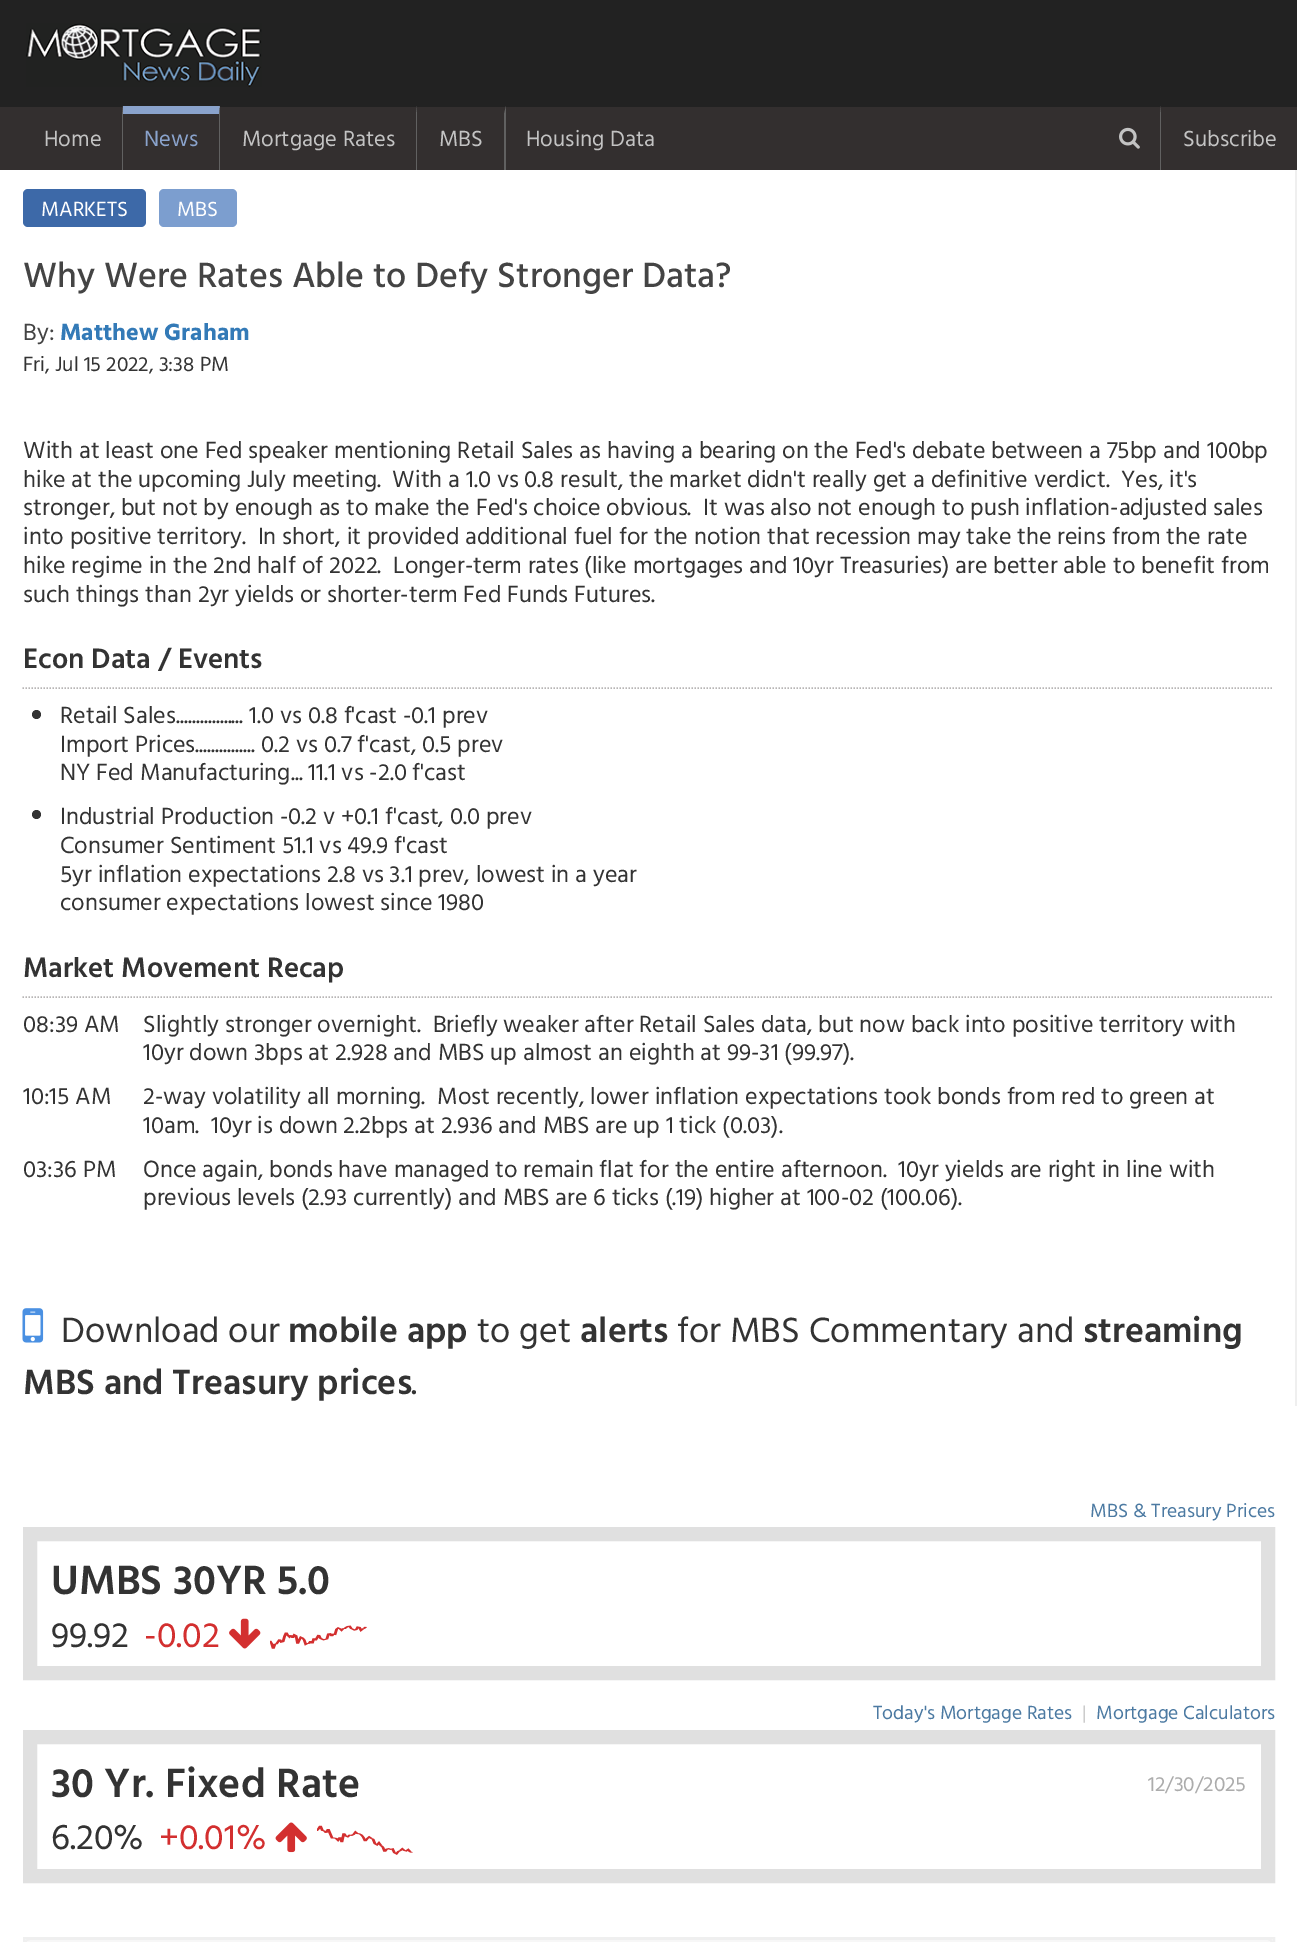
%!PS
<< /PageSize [1297 1942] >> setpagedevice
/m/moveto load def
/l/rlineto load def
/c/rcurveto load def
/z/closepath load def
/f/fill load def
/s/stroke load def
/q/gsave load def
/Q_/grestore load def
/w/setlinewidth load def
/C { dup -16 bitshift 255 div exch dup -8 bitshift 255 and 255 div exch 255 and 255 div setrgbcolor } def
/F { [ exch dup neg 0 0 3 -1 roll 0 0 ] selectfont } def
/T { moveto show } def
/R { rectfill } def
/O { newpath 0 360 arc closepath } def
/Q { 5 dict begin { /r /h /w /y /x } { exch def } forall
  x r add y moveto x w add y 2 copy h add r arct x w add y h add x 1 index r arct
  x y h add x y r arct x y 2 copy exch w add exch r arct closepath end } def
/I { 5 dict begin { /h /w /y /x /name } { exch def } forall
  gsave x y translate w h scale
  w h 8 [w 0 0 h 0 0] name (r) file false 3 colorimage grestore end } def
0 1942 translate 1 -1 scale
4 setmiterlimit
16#FFFFFF C
0 0 1297 1942 R
16#222222 C
0 0 1297 107 R
(1.rgb) 26 23 236 64 I
16#332F2F C
0 107 1297 63 R
16#616161 C
123 106 m 0 64 l -1 0 l 0 -56 l z f
/HindVadodara-Regular 22.5 F
16#C3C3C3 C
(Home) 44 146 T
16#8AA3CC C
123 106 m 97 0 l -1 8 l -96 0 l z f
16#616161 C
220 106 m 0 64 l -1 0 l 0 -56 l z f
16#8AA3CC C
(News) 144 146 T
16#616161 C
417 106 m 0 64 l -1 0 l 0 -56 l z f
16#C3C3C3 C
(Mortgage Rates) 242 146 T
16#616161 C
506 106 m 0 64 l -2 0 l 0 -56 l z f
16#C3C3C3 C
(MBS) 439 146 T
(Housing Data) 526 146 T
16#616161 C
1161 106 m 0 64 l -1 0 l 0 -56 l z f
(2.rgb) 1119 127 21 22 I
16#C3C3C3 C
(Subscribe) 1183 146 T
16#EFEFEF C
1295 170 2 1236 R
16#3D69A8 C
23 189 123 38 5 Q f
/HindVadodara-Regular 21 F
16#FFFFFF C
(MARKETS) 41 216 T
16#7C9ECF C
159 189 78 38 5 Q f
16#FFFFFF C
(MBS) 177 216 T
/HindVadodara-Medium 36 F
16#444444 C
(Why Were Rates Able to Defy Stronger Data?) 23 287 T
/HindVadodara-Regular 24 F
(By:) 23 340 T
/HindVadodara-Bold 24 F
16#337AB7 C
(Matthew Graham) 60 340 T
/HindVadodara-Regular 21 F
16#333333 C
(Fri, Jul 15 2022, 3:38 PM) 23 371 T
/HindVadodara-Regular 24 F
(With at least one Fed speaker mentioning Retail Sales as having a bearing on the Fed's debate between a 75bp and 100bp) 23 458 T
(hike at the upcoming July meeting.  With a 1.0 vs 0.8 result, the market didn't really get a definitive verdict.  Yes, it's) 23 487 T
(stronger, but not by enough as to make the Fed's choice obvious.  It was also not enough to push inflation-adjusted sales) 23 515 T
(into positive territory.  In short, it provided additional fuel for the notion that recession may take the reins from the rate) 23 544 T
(hike regime in the 2nd half of 2022.  Longer-term rates \(like mortgages and 10yr Treasuries\) are better able to benefit from) 23 573 T
(such things than 2yr yields or shorter-term Fed Funds Futures.) 23 602 T
16#B7B5B5 C
1.5 w
[1.5 1.5] 0 setdash
22.5 688 m 1249.5 0 l s
/HindVadodara-SemiBold 28.75 F
16#333333 C
(Econ Data / Events) 23 668 T
36.5 714.5 4.5 O f
/HindVadodara-Regular 24 F
(Retail Sales................. 1.0 vs 0.8 f'cast -0.1 prev) 60 723 T
(Import Prices............... 0.2 vs 0.7 f'cast, 0.5 prev) 60 752 T
(NY Fed Manufacturing... 11.1 vs -2.0 f'cast) 60 780 T
36.5 814.5 4.5 O f
(Industrial Production -0.2 v +0.1 f'cast, 0.0 prev) 60 824 T
(Consumer Sentiment 51.1 vs 49.9 f'cast) 60 853 T
(5yr inflation expectations 2.8 vs 3.1 prev, lowest in a year) 60 882 T
(consumer expectations lowest since 1980) 60 910 T
16#B7B5B5 C
22.5 997 m 1249.5 0 l s
/HindVadodara-SemiBold 28.75 F
16#333333 C
(Market Movement Recap) 23 977 T
/HindVadodara-Regular 24 F
(08:39 AM) 23 1032 T
(Slightly stronger overnight.  Briefly weaker after Retail Sales data, but now back into positive territory with) 143 1032 T
(10yr down 3bps at 2.928 and MBS up almost an eighth at 99-31 \(99.97\).) 143 1060 T
(10:15 AM) 23 1104 T
(2-way volatility all morning.  Most recently, lower inflation expectations took bonds from red to green at) 143 1104 T
(10am.  10yr is down 2.2bps at 2.936 and MBS are up 1 tick \(0.03\).) 143 1133 T
(03:36 PM) 23 1177 T
(Once again, bonds have managed to remain flat for the entire afternoon.  10yr yields are right in line with) 143 1177 T
(previous levels \(2.93 currently\) and MBS are 6 ticks \(.19\) higher at 100-02 \(100.06\).) 143 1205 T
(3.rgb) 22 1308 22 35 I
/HindVadodara-Regular 36 F
(Download our) 61 1342 T
/HindVadodara-SemiBold 36 F
(mobile app) 288 1342 T
/HindVadodara-Regular 36 F
(to get) 477 1342 T
/HindVadodara-SemiBold 36 F
(alerts) 580 1342 T
/HindVadodara-Regular 36 F
(for MBS Commentary and) 677 1342 T
/HindVadodara-SemiBold 36 F
(streaming) 1083 1342 T
(MBS and Treasury prices) 23 1394 T
/HindVadodara-Regular 36 F
(.) 411 1394 T
/HindVadodara-Regular 19.5 F
16#4C7AA2 C
(MBS & Treasury Prices) 1090 1517 T
16#E0E0E0 C
14 w
[] 0 setdash
30 1534 1238 139 rectstroke
/HindVadodara-SemiBold 42 F
16#333333 C
(UMBS 30YR 5.0) 51 1594 T
/HindVadodara-Regular 36 F
(99.92) 51 1647 T
16#D32F2F C
(-0.02) 144 1647 T
(4.rgb) 229 1618 32 31 I
(5.rgb) 270 1625 97 24 I
/HindVadodara-Regular 19.5 F
16#4C7AA2 C
(Today's Mortgage Rates) 873 1719 T
16#CCCCCC C
(|) 1082 1719 T
16#4C7AA2 C
(Mortgage Calculators) 1096 1719 T
16#E0E0E0 C
30 1737 1238 139 rectstroke
/HindVadodara-SemiBold 42 F
16#333333 C
(30 Yr. Fixed Rate) 51 1797 T
/HindVadodara-Regular 21 F
16#ACACAC C
(12/30/2025) 1148 1791 T
/HindVadodara-Regular 36 F
16#333333 C
(6.20%) 51 1849 T
16#D32F2F C
(+0.01%) 159 1849 T
(6.rgb) 275 1822 32 31 I
(7.rgb) 317 1825 96 30 I
16#F7F7F7 C
24 1938 m 1250 0 l 0 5 l -1250 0 l z q f Q_
16#EFEFEF C
2 w
s
30 1938 m -2 0 -3 1 -4 2 c 1 1 l 3 -1 l 1238 0 l 2 1 l 2 -1 l -1 -1 -3 -2 -4 -2 c z f
1274 1942 m 0 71 l -2 -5 l 0 -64 l -2 -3 l 2 -1 l z f
24 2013 m 2 -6 l 0 -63 l 1 -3 l -1 -1 l -1 1 -2 2 -2 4 c z f
showpage
